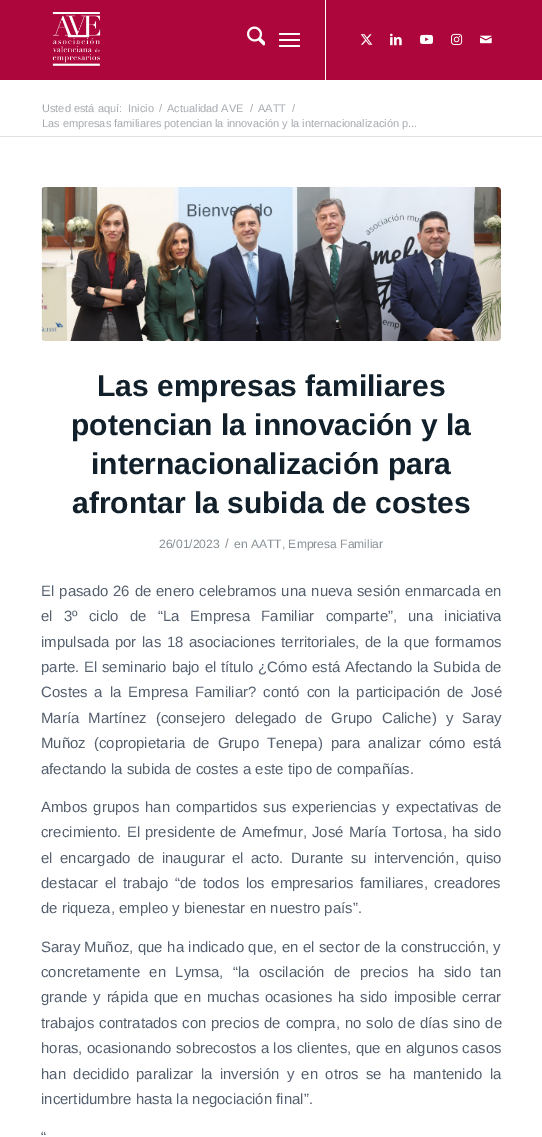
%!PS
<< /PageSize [542 1137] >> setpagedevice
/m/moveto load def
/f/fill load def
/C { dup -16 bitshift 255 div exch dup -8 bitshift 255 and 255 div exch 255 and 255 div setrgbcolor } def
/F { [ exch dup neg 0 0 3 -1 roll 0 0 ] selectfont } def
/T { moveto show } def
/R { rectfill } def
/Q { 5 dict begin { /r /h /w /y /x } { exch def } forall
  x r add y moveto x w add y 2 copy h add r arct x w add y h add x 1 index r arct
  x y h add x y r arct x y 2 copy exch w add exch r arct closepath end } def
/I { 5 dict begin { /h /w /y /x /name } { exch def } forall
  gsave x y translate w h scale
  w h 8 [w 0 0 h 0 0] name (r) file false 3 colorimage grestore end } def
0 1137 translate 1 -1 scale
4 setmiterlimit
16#FFFFFF C
0 0 542 1137 R
16#AC063D C
0 0 542 80 R
(1.rgb) 52 12 49 54 I
16#FFFFFF C
325 0 1 80 R
(2.rgb) 247 26 18 20 I
279 39 21 2 1 Q f
279 33 21 2 1 Q f
279 45 21 2 1 Q f
(3.rgb) 360 34 13 11 I
(4.rgb) 390 33 12 13 I
(5.rgb) 420 34 13 10 I
(6.rgb) 451 33 12 12 I
(7.rgb) 480 35 12 9 I
/LiberationSans-Regular 11 F
16#A7ABB1 C
(Usted está aquí:) 42 112 T
(Inicio) 128 112 T
(/) 159 112 T
(Actualidad AVE) 167 112 T
(/) 250 112 T
(AATT) 258 112 T
(/) 292 112 T
(Las empresas familiares potencian la innovación y la internacionalización p...) 42 127 T
16#E1E1E1 C
0 136 542 1 R
(8.rgb) 41 187 460 154 I
/LiberationSans-Bold 30 F
16#11202A C
(Las empresas familiares) 97 396 T
(potencian la innovación y la) 71 435 T
(internacionalización para) 91 474 T
(afrontar la subida de costes) 72 513 T
/LiberationSans-Regular 12.1 F
16#889095 C
(26/01/2023) 159 548 T
/LiberationSans-Regular 13 F
(/) 225 548 T
/LiberationSans-Regular 12.1 F
(en AATT, Empresa Familiar) 234 548 T
/LiberationSans-Regular 14.95 F
16#55606E C
41 596 m .75 0 32 (El pasado 26 de enero celebramos una nueva sesión enmarcada en) widthshow
41 621 m 7 0 32 (el 3º ciclo de “La Empresa Familiar comparte”, una iniciativa) widthshow
41 647 m 1.5 0 32 (impulsada por las 18 asociaciones territoriales, de la que formamos) widthshow
41 672 m .6 0 32 (parte. El seminario bajo el título ¿Cómo está Afectando la Subida de) widthshow
41 697 m 2.75 0 32 (Costes a la Empresa Familiar? contó con la participación de José) widthshow
41 723 m 5 0 32 (María Martínez \(consejero delegado de Grupo Caliche\) y Saray) widthshow
41 748 m 3.75 0 32 (Muñoz \(copropietaria de Grupo Tenepa\) para analizar cómo está) widthshow
(afectando la subida de costes a este tipo de compañías.) 41 774 T
41 812 m 1.75 0 32 (Ambos grupos han compartidos sus experiencias y expectativas de) widthshow
41 837 m 1 0 32 (crecimiento. El presidente de Amefmur, José María Tortosa, ha sido) widthshow
41 863 m 3.1 0 32 (el encargado de inaugurar el acto. Durante su intervención, quiso) widthshow
41 888 m 2.25 0 32 (destacar el trabajo “de todos los empresarios familiares, creadores) widthshow
(de riqueza, empleo y bienestar en nuestro país”.) 41 913 T
41 952 m .25 0 32 (Saray Muñoz, que ha indicado que, en el sector de la construcción, y) widthshow
41 977 m 5.25 0 32 (concretamente en Lymsa, “la oscilación de precios ha sido tan) widthshow
41 1002 m 1.6 0 32 (grande y rápida que en muchas ocasiones ha sido imposible cerrar) widthshow
41 1028 m .75 0 32 (trabajos contratados con precios de compra, no solo de días sino de) widthshow
41 1053 m .1 0 32 (horas, ocasionando sobrecostos a los clientes, que en algunos casos) widthshow
41 1079 m 3.1 0 32 (han decidido paralizar la inversión y en otros se ha mantenido la) widthshow
(incertidumbre hasta la negociación final”.) 41 1104 T
41 1142 m 1 0 32 (“) widthshow
showpage
